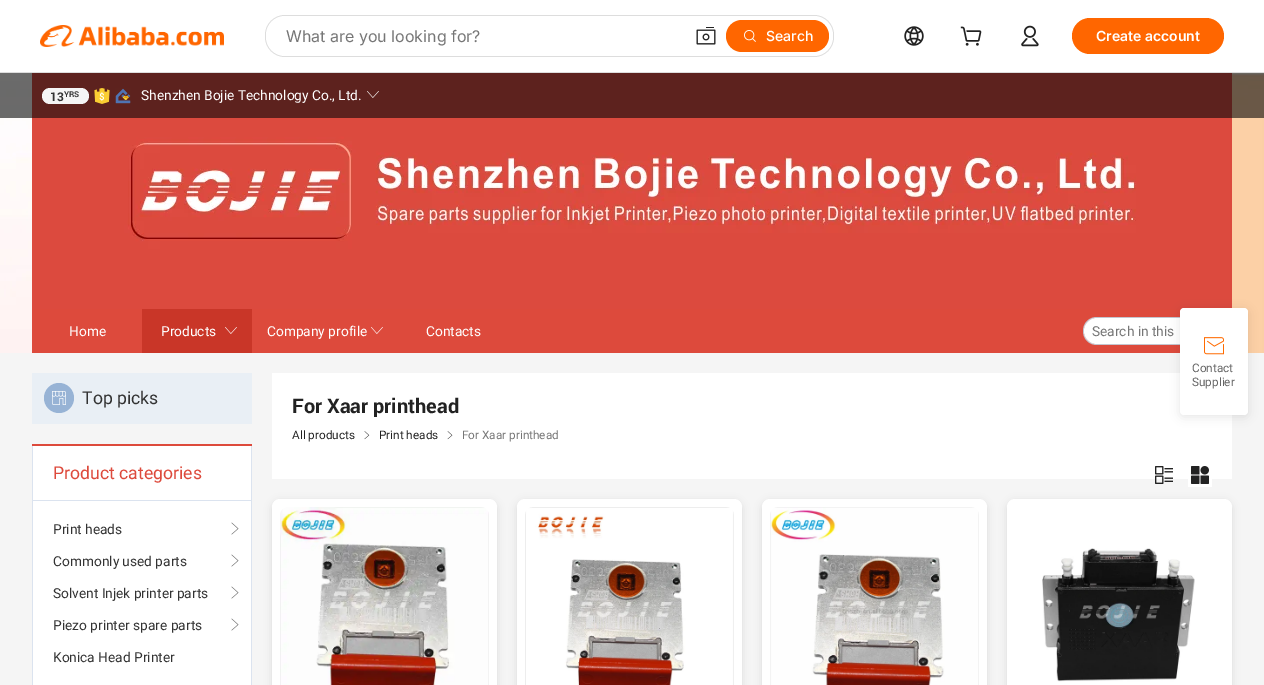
%!PS
<< /PageSize [1264 685] /PageUsesTransparency true >> setpagedevice
/m/moveto load def
/l/rlineto load def
/c/rcurveto load def
/z/closepath load def
/f/fill load def
/C { dup -16 bitshift 255 div exch dup -8 bitshift 255 and 255 div exch 255 and 255 div setrgbcolor } def
/F { [ exch dup neg 0 0 3 -1 roll 0 0 ] selectfont } def
/T { moveto show } def
/R { rectfill } def
/A { dup .setfillconstantalpha .setstrokeconstantalpha } def
/O { newpath 0 360 arc closepath } def
/Q { 5 dict begin { /r /h /w /y /x } { exch def } forall
  x r add y moveto x w add y 2 copy h add r arct x w add y h add x 1 index r arct
  x y h add x y r arct x y 2 copy exch w add exch r arct closepath end } def
/S { 12 dict begin { /a /b /q /h /w /y /x } { exch def } forall gsave /was 0 def
  9 -2 -9 { dup b mul 4 div /e exch def 1 sub .425 mul 2.718 exch exp 1 add a .99 .min exch div /now exch def
    1 1 now sub 1 was sub div sub A /was now def
    w h .min e 2 mul add 0 gt { x e sub y e sub w e 2 mul add h e 2 mul add
      q e add b .6 mul add w h .min 2 div e add .min 0 .max Q fill } if } for grestore end } def
/I { 5 dict begin { /h /w /y /x /name } { exch def } forall
  gsave x y translate w h scale
  w h 8 [w 0 0 h 0 0] name (r) file false 3 colorimage grestore end } def
0 .pushpdf14devicefilter
0 685 translate 1 -1 scale
4 setmiterlimit
16#FFFFFF C
0 0 1264 685 R
16#DDDDDD C
0 72 1264 1 R
(1.rgb) 40 25 184 22 I
265 15 569 42 20 Q f
16#FFFFFF C
266 16 567 40 19 Q f
/Inter-Regular 16 F
16#767676 C
(What are you looking for?) 286 42 T
(2.rgb) 696 27 20 18 I
16#FF6600 C
726 20 103 32 16 Q f
(3.rgb) 744 30 12 12 I
/Inter-Medium 14 F
16#FFFFFF C
(Search) 766 41 T
(4.rgb) 904 26 20 20 I
(5.rgb) 960 26 22 20 I
(6.rgb) 1021 25 18 22 I
16#FF6600 C
1072 18 152 36 18 Q f
/Inter-SemiBold 14 F
16#FFFFFF C
(Create account) 1096 41 T
(7.rgb) 0 73 1264 280 I
(8.rgb) 32 73 1200 236 I
0.2 A
16#333333 C
0 73 1264 45 R
0.5 A
16#000000 C
0 73 1264 45 R
1 A
16#F5F5F5 C
42 88 47 16 8 Q f
/Roboto-Bold 12 F
16#333333 C
(13) 50 101 T
/Roboto-Bold 8 F
(YRS) 64 97 T
(9.rgb) 94 88 16 16 I
(10.rgb) 115 88 16 16 I
/Roboto-Regular 14 F
16#FFFFFF C
(Shenzhen Bojie Technology Co., Ltd.) 141 100 T
(11.rgb) 367 91 12 7 I
16#DD4A3C C
32 309 1150 44 R
16#FFFFFF C
(Home) 69 336 T
16#C93628 C
142 309 110 44 R
16#FFFFFF C
(Products) 161 336 T
(12.rgb) 225 327 12 7 I
(Company profile) 267 336 T
(13.rgb) 371 327 12 7 I
(Contacts) 426 336 T
16#C4C6CF C
1097 317 m 87 0 l 0 28 l -87 0 l -8 0 -14 -6 -14 -14 c 0 -8 6 -14 14 -14 c z 1097 318 m 87 0 l 0 26 l -87 0 l -7 0 -13 -6 -13 -13 c 0 -7 6 -13 13 -13 c z eofill
16#FFFFFF C
1097 318 m 86.5 0 l .5 0 .5 0 .5 .5 c 0 25 l 0 .5 0 .5 -.5 .5 c -86.5 0 l -7 0 -13 -6 -13 -13 c 0 -7 6 -13 13 -13 c z f
16#767676 C
(Search in this) 1092 336 T
16#F5F5F5 C
0 353 1264 332 R
16#E9EFF5 C
32 373 220 51 R
16#97B3D5 C
59 398 15 O f
(14.rgb) 52 391 14 14 I
/Roboto-Regular 18 F
16#333333 C
(Top picks) 82 404 T
16#FFFFFF C
33 446 218 239 R
16#DD4A3C C
32 444 220 2 R
16#DBE3EF C
251 446 1 239 R
32 446 1 239 R
33 500 218 1 R
16#DD4A3C C
(Product categories) 53 479 T
/Roboto-Regular 14 F
16#333333 C
(Print heads) 53 534 T
(15.rgb) 231 522 8 13 I
(Commonly used parts) 53 566 T
(15.rgb) 231 554 8 13 I
(Solvent Injek printer parts) 53 598 T
(15.rgb) 231 586 8 13 I
(Piezo printer spare parts) 53 630 T
(15.rgb) 231 618 8 13 I
(Konica Head Printer) 53 662 T
16#FFFFFF C
272 373 960 106 R
/Roboto-Bold 20 F
16#222222 C
(For Xaar printhead) 292 413 T
/Roboto-Regular 12 F
(All products) 292 439 T
(16.rgb) 364 431 6 9 I
(Print heads) 379 439 T
(17.rgb) 447 431 6 9 I
16#767676 C
(For Xaar printhead) 462 439 T
(18.rgb) 1155 466 18 18 I
(19.rgb) 1188 466 24 21 I
16#000000 C
272 501 225 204 8 4 .1 S
16#FFFFFF C
272 499 225 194 8 Q f
(20.rgb) 280 507 209 178 I
16#000000 C
517 501 225 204 8 4 .1 S
16#FFFFFF C
517 499 225 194 8 Q f
(21.rgb) 525 507 209 178 I
16#000000 C
762 501 225 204 8 4 .1 S
16#FFFFFF C
762 499 225 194 8 Q f
(22.rgb) 770 507 209 178 I
16#000000 C
1007 501 225 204 8 4 .1 S
16#FFFFFF C
1007 499 225 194 8 Q f
(23.rgb) 1042 548 153 134 I
16#000000 C
1180 310 68 107 4 5 .1 S
16#FFFFFF C
1180 308 68 107 4 Q f
(24.rgb) 1204 337 20 18 I
16#666666 C
(Contact) 1192 372 T
(Supplier) 1192 386 T
.poppdf14devicefilter showpage
